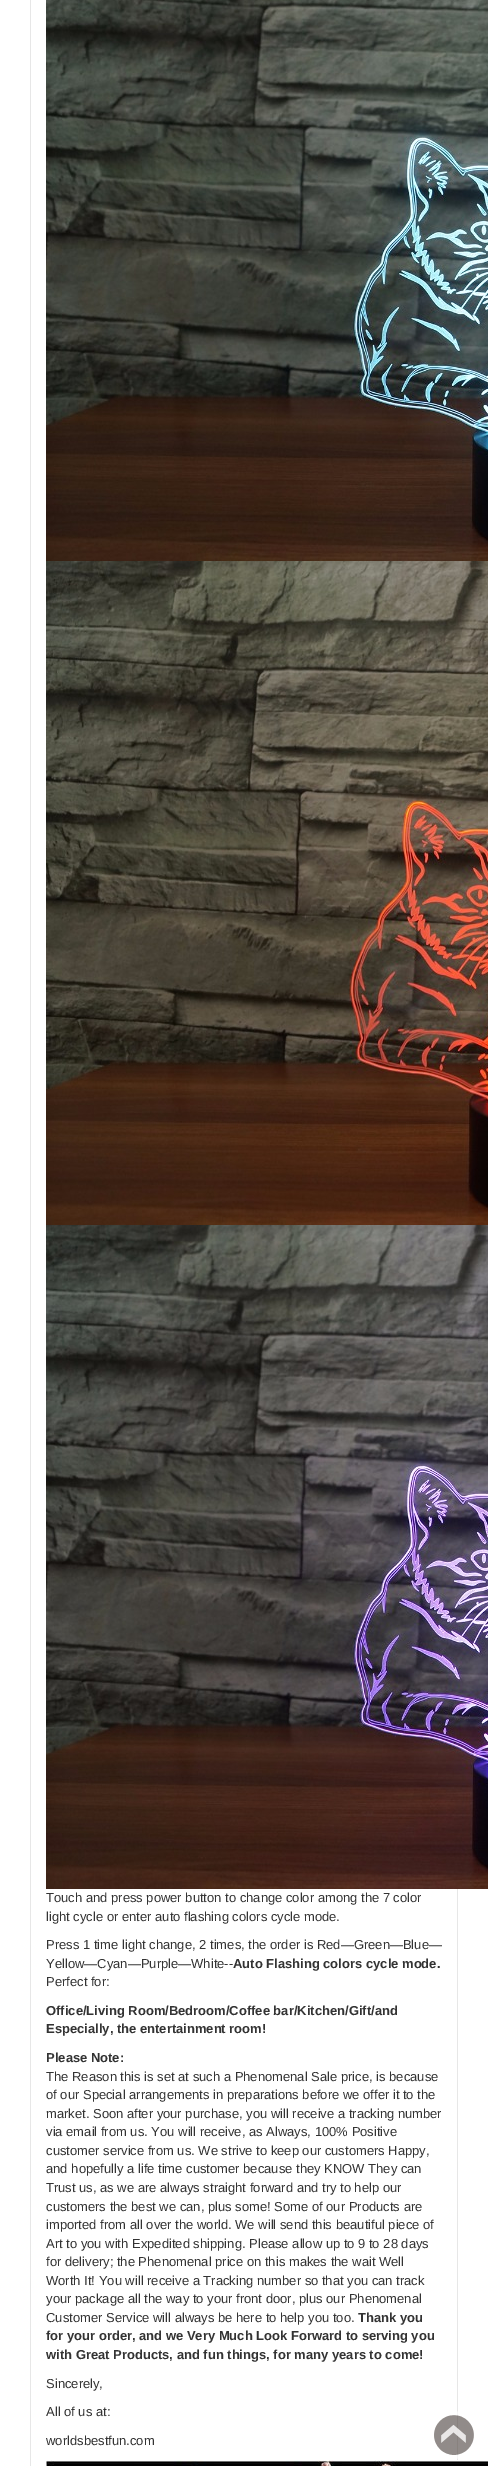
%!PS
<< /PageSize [488 2466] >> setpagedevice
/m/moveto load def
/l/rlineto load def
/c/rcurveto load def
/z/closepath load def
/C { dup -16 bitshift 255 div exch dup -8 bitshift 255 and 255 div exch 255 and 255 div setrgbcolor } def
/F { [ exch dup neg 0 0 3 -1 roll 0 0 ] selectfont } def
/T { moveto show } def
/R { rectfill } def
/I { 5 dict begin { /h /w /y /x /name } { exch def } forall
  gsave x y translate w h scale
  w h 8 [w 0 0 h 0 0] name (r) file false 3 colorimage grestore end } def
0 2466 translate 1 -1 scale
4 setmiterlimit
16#FFFFFF C
0 0 488 2466 R
16#E7E7E7 C
33 -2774 m 422 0 l 2 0 3 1 3 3 c 0 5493 l 0 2 -1 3 -3 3 c -422 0 l -2 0 -3 -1 -3 -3 c 0 -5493 l 0 -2 1 -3 3 -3 c z 33 -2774 m 422 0 l 1 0 2 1 2 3 c 0 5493 l 0 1 -1 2 -2 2 c -422 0 l -1 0 -2 -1 -2 -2 c 0 -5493 l 0 -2 1 -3 2 -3 c z eofill
(1.rgb) 46 0 442 561 I
(2.rgb) 46 561 442 664 I
(3.rgb) 46 1225 442 664 I
/LiberationSans-Regular 13 F
16#333333 C
(Touch and press power button to change color among the 7 color) 46 1902 T
(light cycle or enter auto flashing colors cycle mode.) 46 1921 T
(Press 1 time light change, 2 times, the order is Red—Green—Blue—) 46 1949 T
(Yellow—Cyan—Purple—White--) 46 1968 T
/LiberationSans-Bold 13 F
(Auto Flashing colors cycle mode.) 233 1968 T
/LiberationSans-Regular 13 F
(Perfect for:) 46 1986 T
/LiberationSans-Bold 13 F
(Office/Living Room/Bedroom/Coffee bar/Kitchen/Gift/and) 46 2015 T
(Especially, the entertainment room!) 46 2033 T
(Please Note:) 46 2062 T
/LiberationSans-Regular 13 F
(The Reason this is set at such a Phenomenal Sale price, is because) 46 2081 T
(of our Special arrangements in preparations before we offer it to the) 46 2099 T
(market. Soon after your purchase, you will receive a tracking number) 46 2118 T
(via email from us. You will receive, as Always, 100% Positive) 46 2136 T
(customer service from us. We strive to keep our customers Happy,) 46 2155 T
(and hopefully a life time customer because they KNOW They can) 46 2173 T
(Trust us, as we are always straight forward and try to help our) 46 2192 T
(customers the best we can, plus some! Some of our Products are) 46 2211 T
(imported from all over the world. We will send this beautiful piece of) 46 2229 T
(Art to you with Expedited shipping. Please allow up to 9 to 28 days) 46 2248 T
(for delivery; the Phenomenal price on this makes the wait Well) 46 2266 T
(Worth It! You will receive a Tracking number so that you can track) 46 2285 T
(your package all the way to your front door, plus our Phenomenal) 46 2303 T
(Customer Service will always be here to help you too.) 46 2322 T
/LiberationSans-Bold 13 F
(Thank you) 358 2322 T
(for your order, and we Very Much Look Forward to serving you) 46 2340 T
(with Great Products, and fun things, for many years to come!) 46 2359 T
/LiberationSans-Regular 13 F
(Sincerely,) 46 2388 T
(All of us at:) 46 2416 T
(worldsbestfun.com) 46 2445 T
(4.rgb) 46 2460 442 6 I
(5.rgb) 434 2411 40 48 I
showpage
